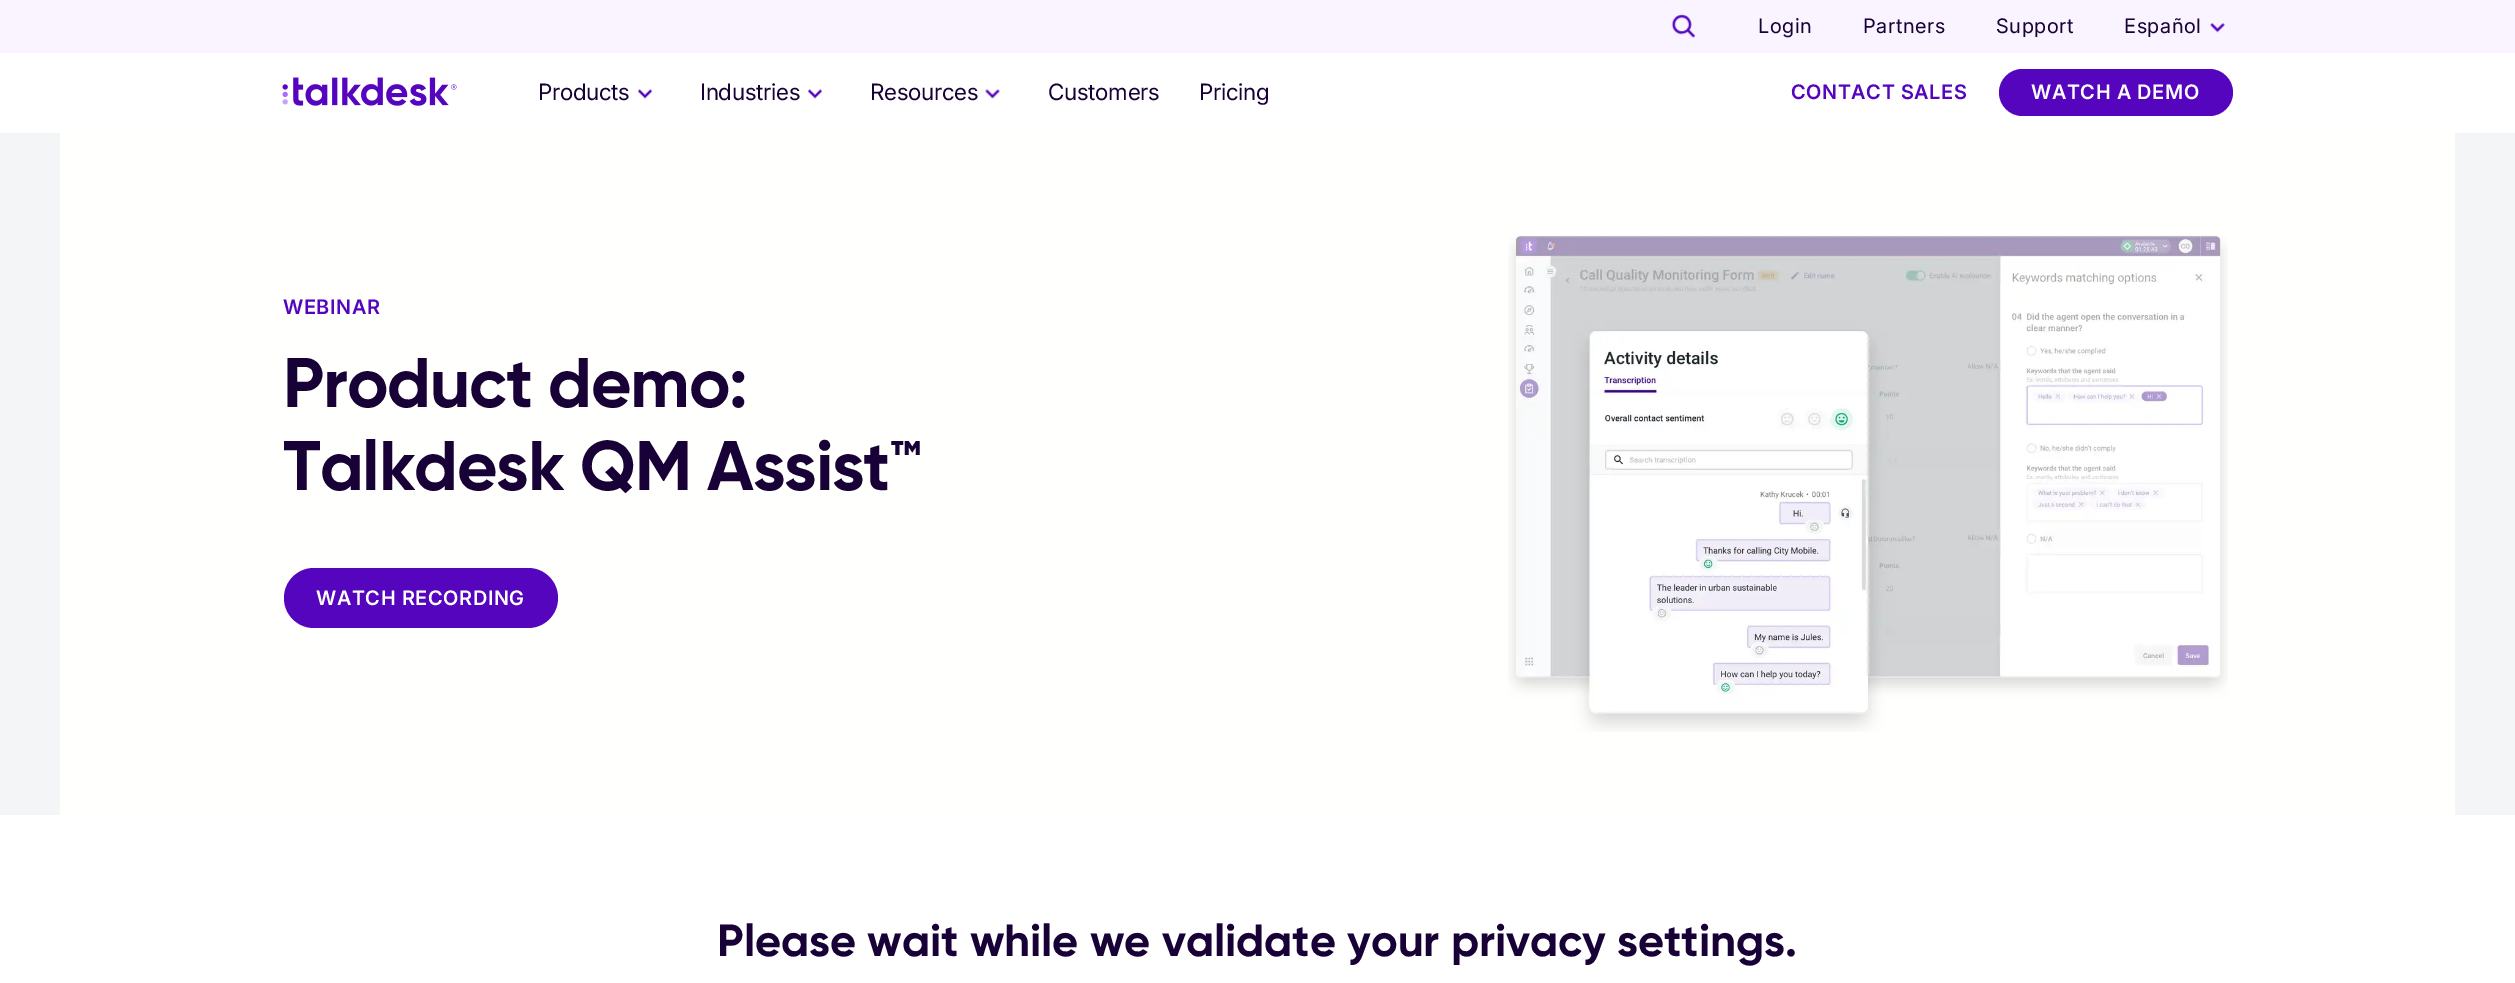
%!PS
<< /PageSize [2515 983] >> setpagedevice
/m/moveto load def
/f/fill load def
/C { dup -16 bitshift 255 div exch dup -8 bitshift 255 and 255 div exch 255 and 255 div setrgbcolor } def
/F { [ exch dup neg 0 0 3 -1 roll 0 0 ] selectfont } def
/T { moveto show } def
/R { rectfill } def
/Q { 5 dict begin { /r /h /w /y /x } { exch def } forall
  x r add y moveto x w add y 2 copy h add r arct x w add y h add x 1 index r arct
  x y h add x y r arct x y 2 copy exch w add exch r arct closepath end } def
/I { 5 dict begin { /h /w /y /x /name } { exch def } forall
  gsave x y translate w h scale
  w h 8 [w 0 0 h 0 0] name (r) file false 3 colorimage grestore end } def
0 983 translate 1 -1 scale
4 setmiterlimit
16#FFFFFF C
0 0 2515 983 R
16#F9F4FF C
0 0 2515 53 R
(1.rgb) 1671 14 25 24 I
/Inter-Regular 20 F
16#180136 C
1758 33 m .6 0 (Login) ashow
1863 33 m .6 0 (Partners) ashow
1996 33 m .6 0 (Support) ashow
2124 33 m .6 0 (Español) ashow
(2.rgb) 2210 23 15 10 I
(3.rgb) 282 77 175 29 I
/Inter-Regular 22.5 F
538 100 m -.25 0 (Products) ashow
(4.rgb) 638 89 14 10 I
700 100 m -.25 0 (Industries) ashow
(4.rgb) 808 89 14 10 I
870 100 m -.25 0 (Resources) ashow
(5.rgb) 985 89 15 10 I
1048 100 m -.25 0 (Customers) ashow
1199 100 m -.25 0 (Pricing) ashow
/Inter-SemiBold 20 F
16#5405BD C
1791 99 m .6 0 (CONTACT SALES) ashow
1999 69 234 47 23.5 Q f
16#FFFFFE C
2031 99 m .6 0 (WATCH A DEMO) ashow
16#F4F5F7 C
0 133 2515 682 R
16#FFFFFE C
60 133 2395 682 R
16#5405BD C
283 314 m .6 0 (WEBINAR) ashow
/Gilroy-Bold 70 F
16#180136 C
283 407 m -1.1 0 (Product demo:) ashow
283 490 m -1.1 0 (Talkdesk QM Assist™) ashow
16#5405BD C
284 568 274 60 30 Q f
/Inter-SemiBold 20 F
16#FFFFFE C
316 605 m .6 0 (WATCH RECORDING) ashow
(6.rgb) 1508 235 720 497 I
/Gilroy-Bold 45 F
16#180136 C
(Please wait while we validate your privacy settings.) 717 956 T
showpage
